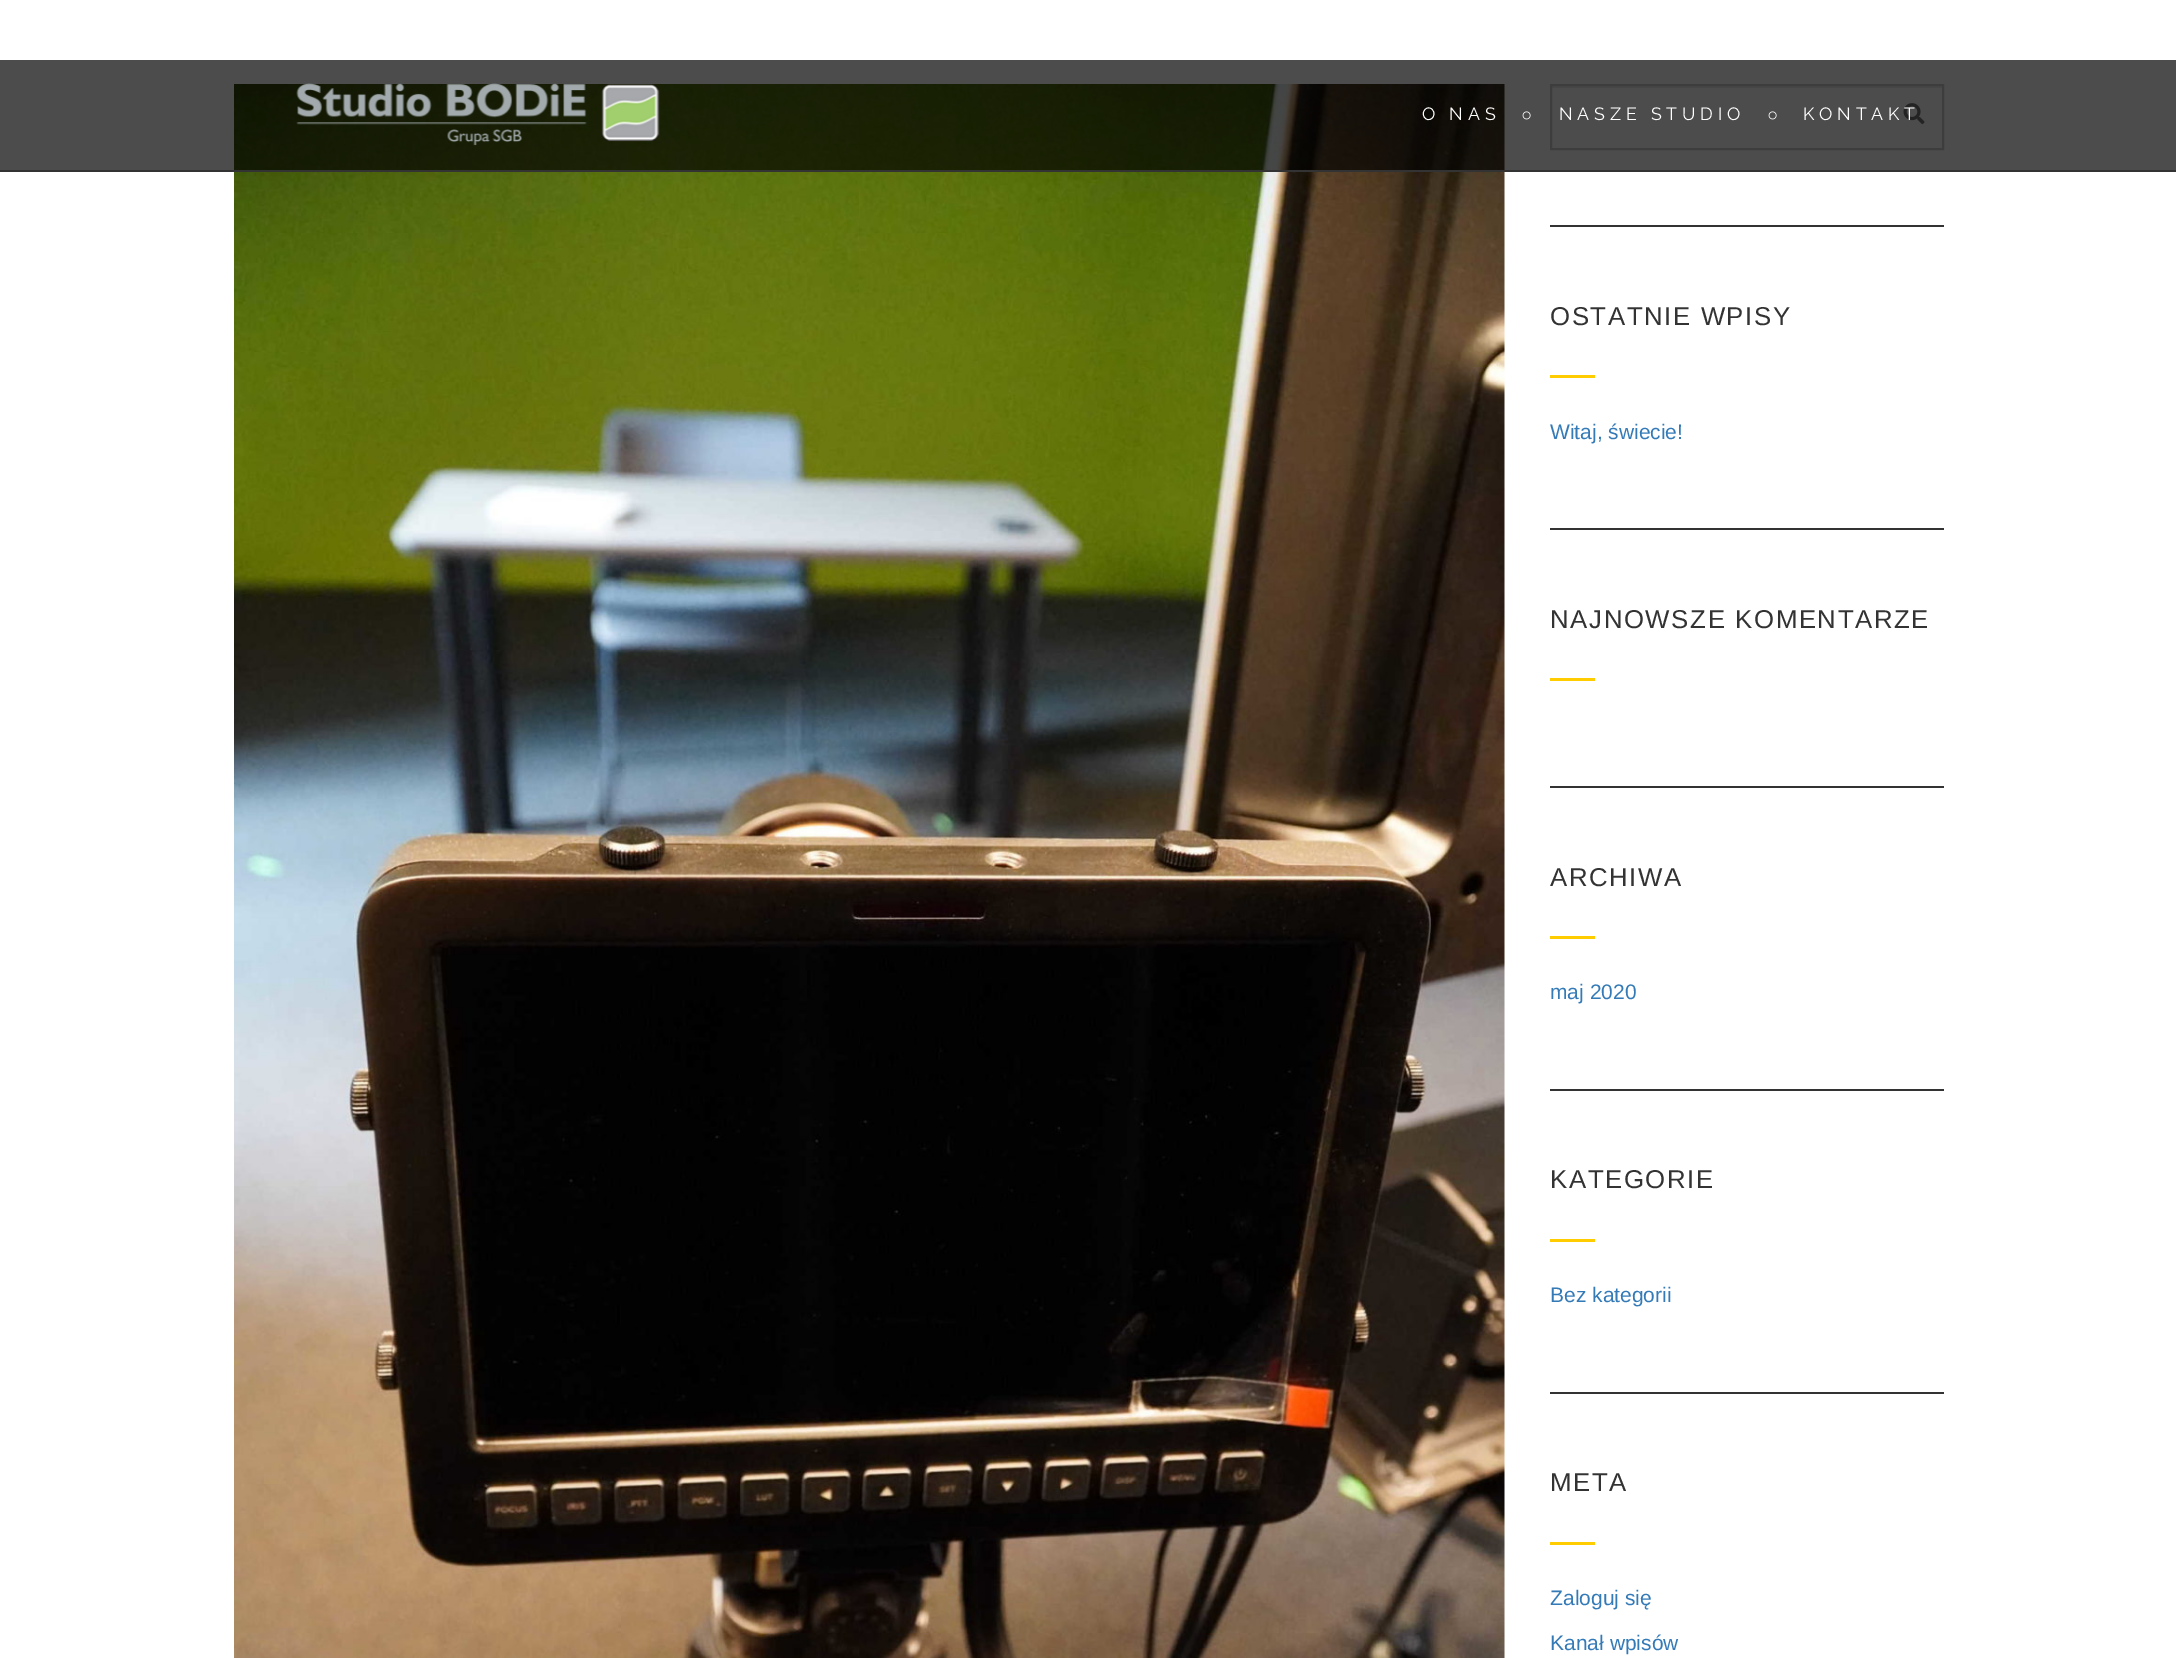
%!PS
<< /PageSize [2176 1658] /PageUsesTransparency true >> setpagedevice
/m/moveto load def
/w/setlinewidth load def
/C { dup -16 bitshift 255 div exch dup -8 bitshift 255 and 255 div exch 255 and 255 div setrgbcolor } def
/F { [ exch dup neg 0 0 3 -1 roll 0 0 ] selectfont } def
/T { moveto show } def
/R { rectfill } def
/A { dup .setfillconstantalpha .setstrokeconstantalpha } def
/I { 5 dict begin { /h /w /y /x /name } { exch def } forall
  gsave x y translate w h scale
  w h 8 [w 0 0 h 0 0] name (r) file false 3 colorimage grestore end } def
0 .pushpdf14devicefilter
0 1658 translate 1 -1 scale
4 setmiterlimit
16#FFFFFF C
0 0 2176 1658 R
(3.rgb) 234 84 1271 1574 I
16#ECECEC C
1551 86 392 2 R
16#CCCCCC C
2 w
1551 85 392 64 rectstroke
(4.rgb) 1903 103 22 22 I
0.7 A
16#000000 C
0 60 2176 110 R
1 A
16#333333 C
0 170 2176 2 R
(1.rgb) 296 83 364 63 I
/Raleway-Regular 17.75 F
16#FFFFFF C
1422 120 m 4.8 0 (O NAS) ashow
(2.rgb) 1522 111 9 9 I
1559 120 m 4.8 0 (NASZE STUDIO) ashow
(2.rgb) 1768 111 9 9 I
1803 120 m 4.8 0 (KONTAKT) ashow
16#333333 C
1550 225 394 2 R
1550 528 394 2 R
/LiberationSans-Regular 25.8 F
1550 325 m 1.6 0 (OSTATNIE WPISY) ashow
16#FFCC00 C
1550 375 45 3 R
/LiberationSans-Regular 21 F
16#337AB7 C
(Witaj, świecie!) 1550 439 T
16#333333 C
1550 786 394 2 R
/LiberationSans-Regular 25.8 F
1550 628 m 1.6 0 (NAJNOWSZE KOMENTARZE) ashow
16#FFCC00 C
1550 678 45 3 R
16#333333 C
1550 1089 394 2 R
1550 886 m 1.6 0 (ARCHIWA) ashow
16#FFCC00 C
1550 936 45 3 R
/LiberationSans-Regular 21 F
16#337AB7 C
(maj 2020) 1550 999 T
16#333333 C
1550 1392 394 2 R
/LiberationSans-Regular 25.8 F
1550 1188 m 1.6 0 (KATEGORIE) ashow
16#FFCC00 C
1550 1239 45 3 R
/LiberationSans-Regular 21 F
16#337AB7 C
(Bez kategorii) 1550 1302 T
/LiberationSans-Regular 25.8 F
16#333333 C
1550 1491 m 1.6 0 (META) ashow
16#FFCC00 C
1550 1542 45 3 R
/LiberationSans-Regular 21 F
16#337AB7 C
(Zaloguj się) 1550 1605 T
(Kanał wpisów) 1550 1650 T
.poppdf14devicefilter showpage
